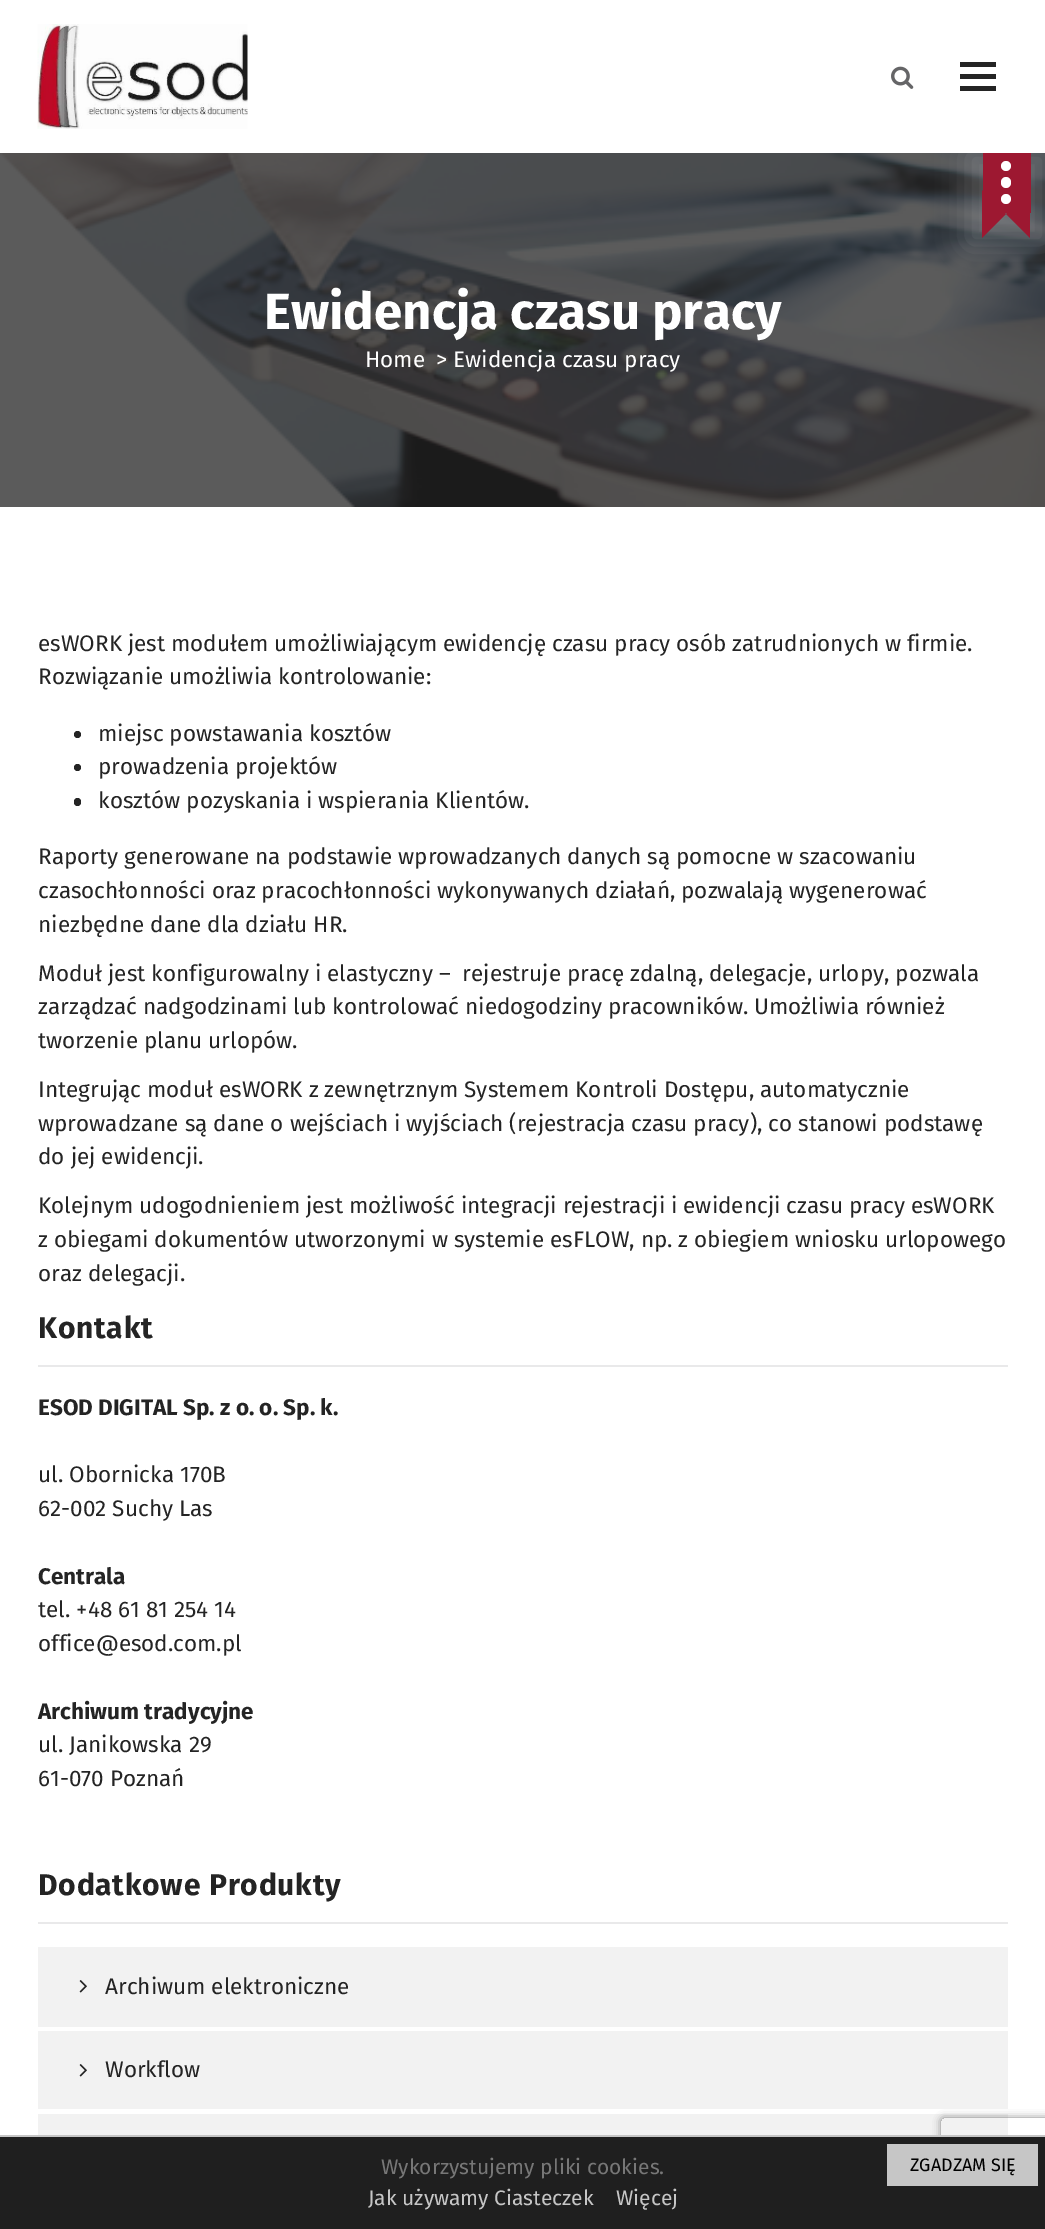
%!PS
<< /PageSize [1045 2229] /PageUsesTransparency true >> setpagedevice
/m/moveto load def
/l/rlineto load def
/c/rcurveto load def
/z/closepath load def
/f/fill load def
/q/gsave load def
/Q_/grestore load def
/C { dup -16 bitshift 255 div exch dup -8 bitshift 255 and 255 div exch 255 and 255 div setrgbcolor } def
/F { [ exch dup neg 0 0 3 -1 roll 0 0 ] selectfont } def
/T { moveto show } def
/R { rectfill } def
/A { dup .setfillconstantalpha .setstrokeconstantalpha } def
/O { newpath 0 360 arc closepath } def
/Q { 5 dict begin { /r /h /w /y /x } { exch def } forall
  x r add y moveto x w add y 2 copy h add r arct x w add y h add x 1 index r arct
  x y h add x y r arct x y 2 copy exch w add exch r arct closepath end } def
/S { 12 dict begin { /a /b /q /h /w /y /x } { exch def } forall gsave /was 0 def
  9 -2 -9 { dup b mul 4 div /e exch def 1 sub .425 mul 2.718 exch exp 1 add a .99 .min exch div /now exch def
    1 1 now sub 1 was sub div sub A /was now def
    w h .min e 2 mul add 0 gt { x e sub y e sub w e 2 mul add h e 2 mul add
      q e add b .6 mul add w h .min 2 div e add .min 0 .max Q fill } if } for grestore end } def
/I { 5 dict begin { /h /w /y /x /name } { exch def } forall
  gsave x y translate w h scale
  w h 8 [w 0 0 h 0 0] name (r) file false 3 colorimage grestore end } def
0 .pushpdf14devicefilter
0 2229 translate 1 -1 scale
4 setmiterlimit
16#FFFFFF C
0 0 1045 2229 R
16#5B5B5B C
0 153 355 354 R
(1.rgb) 37 24 211 105 I
(2.rgb) 891 66 23 23 I
16#242424 C
960 62 36 5 R
960 74 36 5 R
960 86 36 5 R
(3.rgb) 0 153 1045 354 I
16#FFFFFF C
968 153 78 90 0 15 .2 S
16#9D1831 C
983 153 48 60 R
16#FFFFFF C
1001 177 10 11 5 Q f
1006 166 5 O f
16#9D1831 C
1030 190 m 0 48 l -24 -24 l z 982 238 m 0 -48 l 24 24 l z f
16#FFFFFF C
1006 199 5 O f
/FiraSans-Bold 51 F
(Ewidencja czasu pracy) 264 329 T
/FiraSans-Regular 22.5 F
(Home) 365 367 T
(> Ewidencja czasu pracy) 436 367 T
16#242424 C
(esWORK jest modułem umożliwiającym ewidencję czasu pracy osób zatrudnionych w firmie.) 38 651 T
(Rozwiązanie umożliwia kontrolowanie:) 38 684 T
77.5 734.5 3.5 O f
(miejsc powstawania kosztów) 98 741 T
77.5 767.5 3.5 O f
(prowadzenia projektów) 98 774 T
74 798 7 8 3.5 Q f
(kosztów pozyskania i wspierania Klientów.) 98 808 T
(Raporty generowane na podstawie wprowadzanych danych są pomocne w szacowaniu) 38 864 T
(czasochłonności oraz pracochłonności wykonywanych działań, pozwalają wygenerować) 38 898 T
(niezbędne dane dla działu HR.) 38 932 T
(Moduł jest konfigurowalny i elastyczny –  rejestruje pracę zdalną, delegacje, urlopy, pozwala) 38 981 T
(zarządzać nadgodzinami lub kontrolować niedogodziny pracowników. Umożliwia również) 38 1014 T
(tworzenie planu urlopów.) 38 1048 T
(Integrując moduł esWORK z zewnętrznym Systemem Kontroli Dostępu, automatycznie) 38 1097 T
(wprowadzane są dane o wejściach i wyjściach \(rejestracja czasu pracy\), co stanowi podstawę) 38 1131 T
(do jej ewidencji.) 38 1164 T
(Kolejnym udogodnieniem jest możliwość integracji rejestracji i ewidencji czasu pracy esWORK) 38 1213 T
(z obiegami dokumentów utworzonymi w systemie esFLOW, np. z obiegiem wniosku urlopowego) 38 1247 T
(oraz delegacji.) 38 1281 T
16#E9E9EA C
38 1365 970 2 R
/FiraSans-Bold 30 F
16#242424 C
38 1338 m .75 0 (Kontakt) ashow
/FiraSans-Bold 22.5 F
(ESOD DIGITAL Sp. z o. o. Sp. k.) 38 1415 T
/FiraSans-Regular 22.5 F
(ul. Obornicka 170B) 38 1482 T
(62-002 Suchy Las) 38 1516 T
/FiraSans-Bold 22.5 F
(Centrala) 38 1584 T
/FiraSans-Regular 22.5 F
(tel. +48 61 81 254 14) 38 1617 T
(office@esod.com.pl) 38 1651 T
/FiraSans-Bold 22.5 F
(Archiwum tradycyjne) 38 1719 T
/FiraSans-Regular 22.5 F
(ul. Janikowska 29) 38 1752 T
(61-070 Poznań) 38 1786 T
16#E9E9EA C
38 1922 970 2 R
/FiraSans-Bold 30 F
16#242424 C
38 1895 m .75 0 (Dodatkowe Produkty) ashow
16#F2F2F2 C
38 1947 970 80 R
(4.rgb) 79 1980 8 13 I
/FiraSans-Regular 22.5 F
16#242424 C
(Archiwum elektroniczne) 105 1994 T
16#F2F2F2 C
38 2031 970 78 R
(4.rgb) 79 2064 8 13 I
16#242424 C
(Workflow) 105 2077 T
16#F2F2F2 C
38 2114 970 21 R
q
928 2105 m 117 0 l 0 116 l -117 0 l z 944 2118 m 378 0 l 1.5 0 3 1.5 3 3 c 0 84 l 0 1.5 -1.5 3 -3 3 c -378 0 l -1.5 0 -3 -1.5 -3 -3 c 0 -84 l 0 -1.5 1.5 -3 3 -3 c z eoclip newpath
16#808080 C
941 2118 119 90 3 4 1 S
Q_
16#1F1F1F C
0 2137 1045 92 R
16#C6C6C6 C
0 2135 1045 2 R
/FiraSans-Regular 21 F
16#777777 C
(Wykorzystujemy pliki cookies.) 381 2174 T
16#C6C6C6 C
887 2144 151 42 R
/FiraSans-Regular 18 F
16#000000 C
(ZGADZAM SIĘ) 910 2171 T
/FiraSans-Regular 21 F
16#C6C6C6 C
(Jak używamy Ciasteczek) 368 2205 T
(Więcej) 616 2205 T
.poppdf14devicefilter showpage
